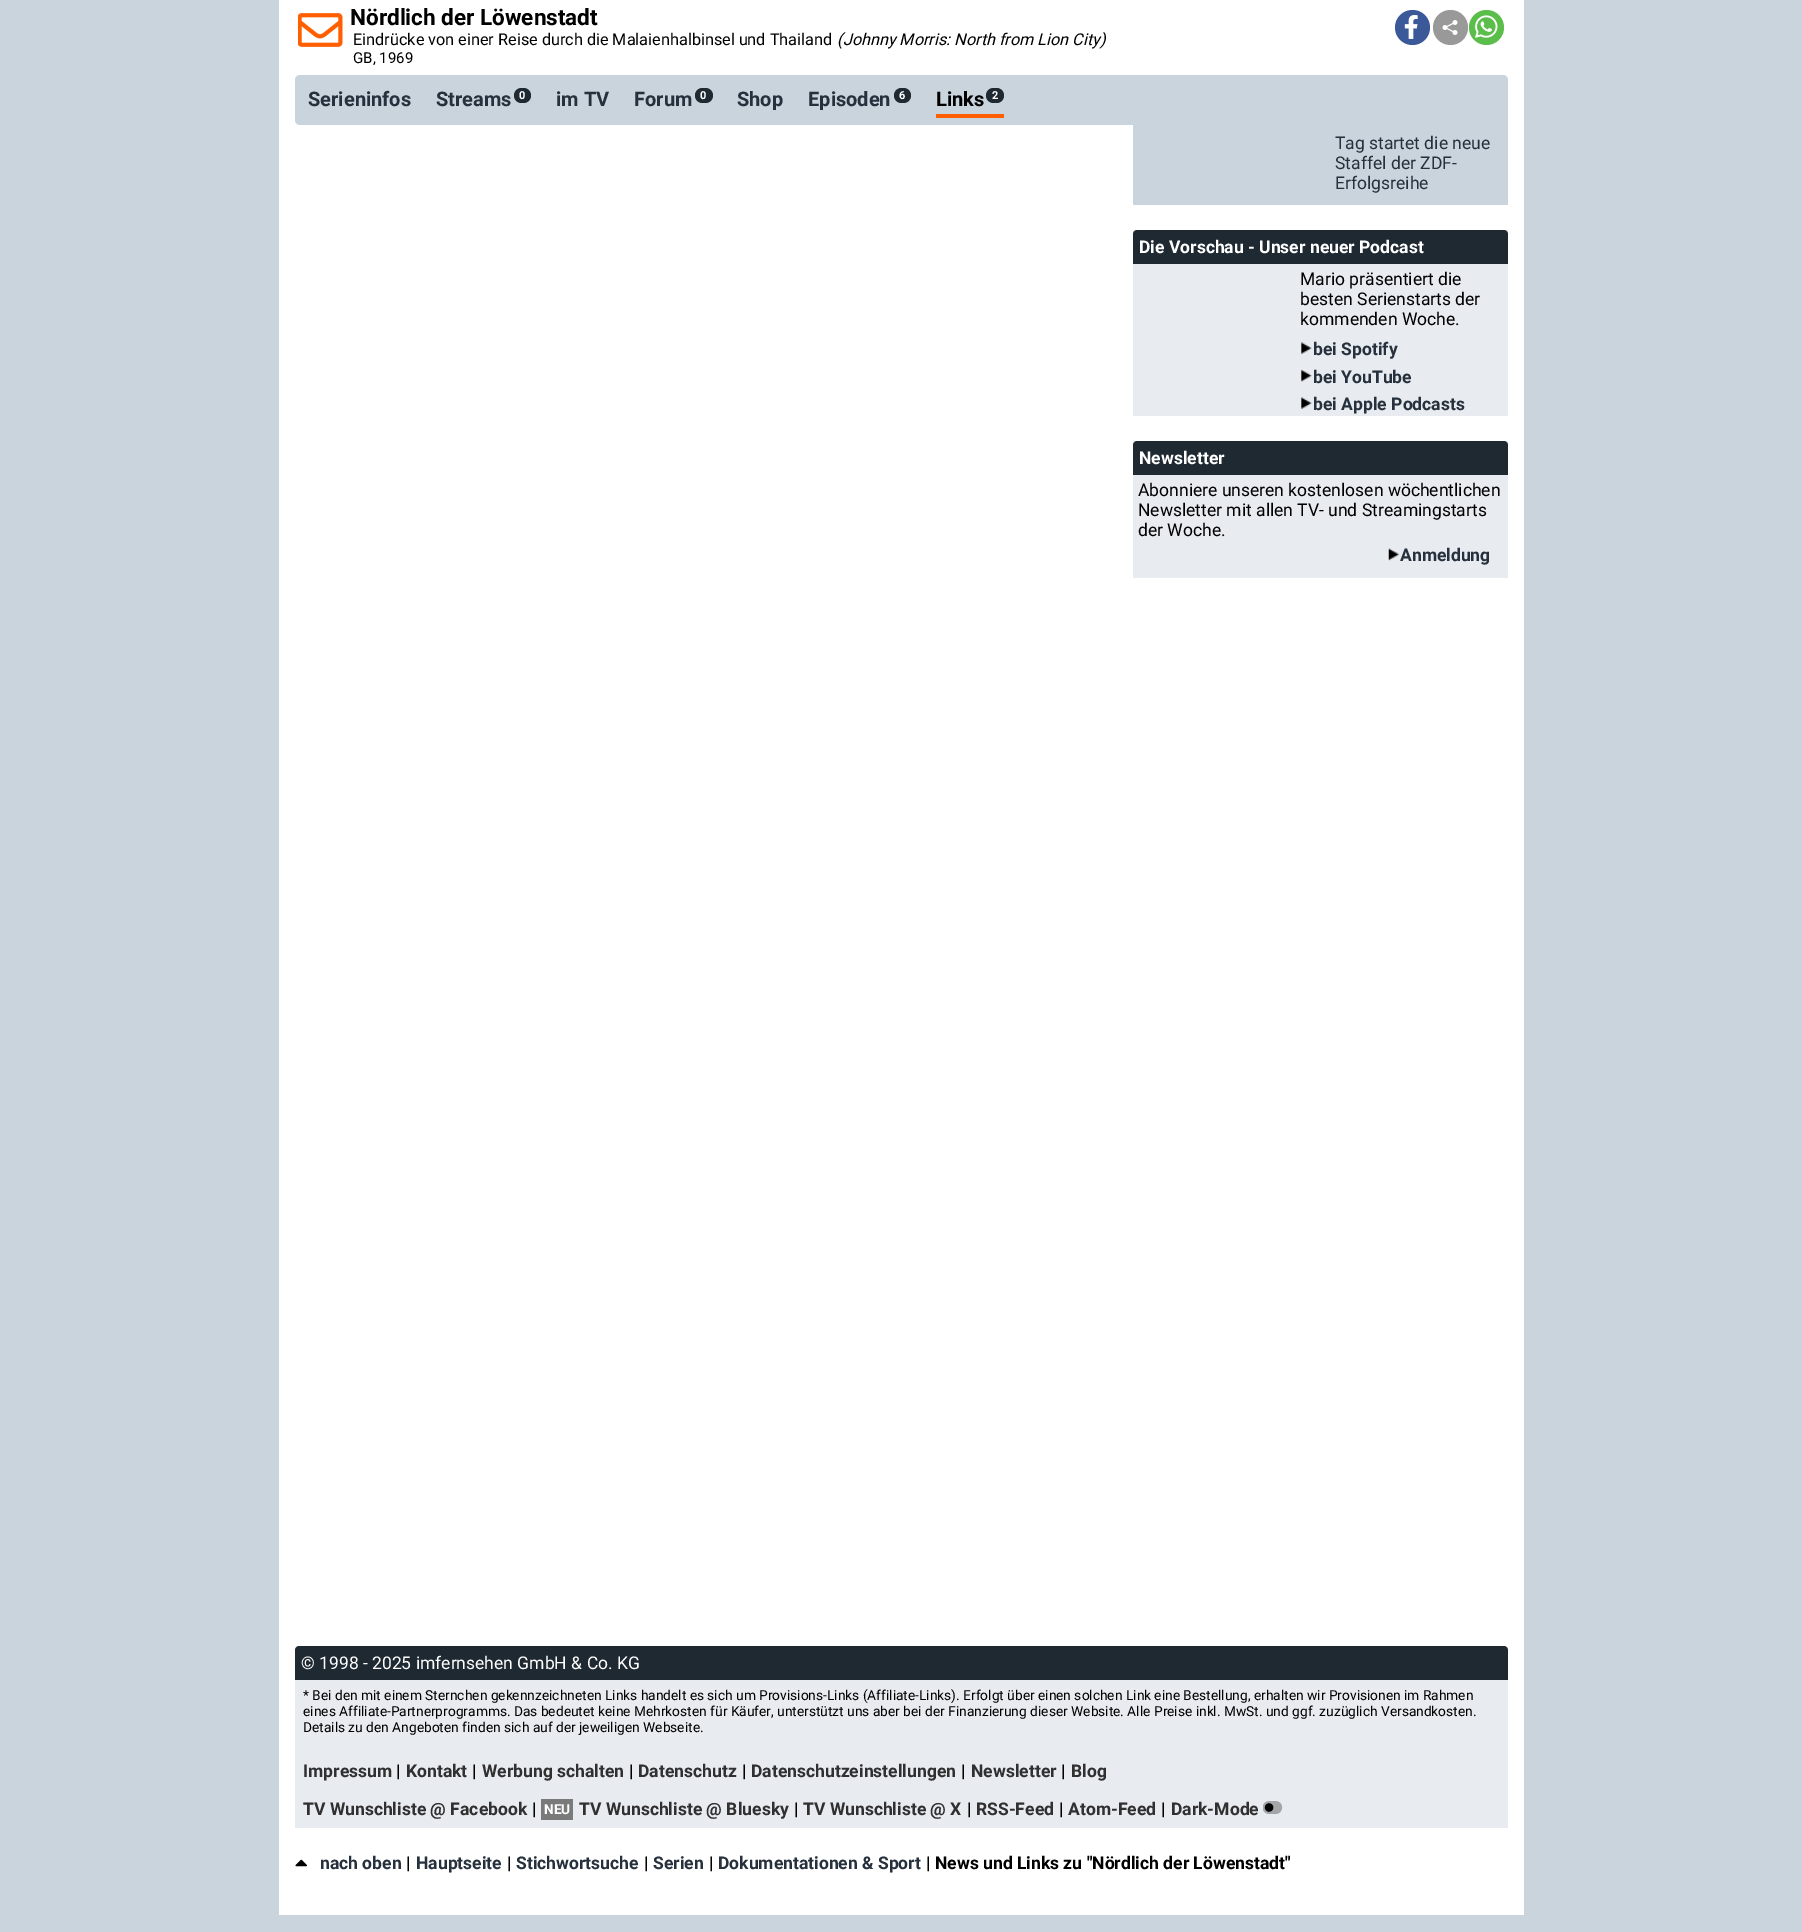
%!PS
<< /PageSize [1802 1932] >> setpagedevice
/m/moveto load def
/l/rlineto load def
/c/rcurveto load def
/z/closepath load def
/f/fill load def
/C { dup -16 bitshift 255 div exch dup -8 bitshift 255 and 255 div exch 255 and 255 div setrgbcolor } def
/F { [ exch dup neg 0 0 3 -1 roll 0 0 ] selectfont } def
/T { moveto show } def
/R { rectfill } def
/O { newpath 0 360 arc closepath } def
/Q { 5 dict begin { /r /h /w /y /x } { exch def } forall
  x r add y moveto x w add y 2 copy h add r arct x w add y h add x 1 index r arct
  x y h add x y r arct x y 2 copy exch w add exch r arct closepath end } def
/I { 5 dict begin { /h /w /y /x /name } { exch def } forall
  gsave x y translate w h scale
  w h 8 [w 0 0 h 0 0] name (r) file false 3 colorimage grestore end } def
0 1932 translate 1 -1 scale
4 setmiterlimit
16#CAD4DD C
0 0 1802 1932 R
16#FFFFFF C
279 0 1245 1915 R
(1.rgb) 298 13 45 34 I
/Roboto-Bold 22.5 F
16#000000 C
(Nördlich der Löwenstadt) 350 25 T
/Roboto-Regular 16.25 F
(Eindrücke von einer Reise durch die Malaienhalbinsel und Thailand) 353 45 T
/Roboto-Italic 16.25 F
(\(Johnny Morris: North from Lion City\)) 837 45 T
/Roboto-Regular 15 F
(GB, 1969) 353 63 T
16#3B5998 C
1412.5 27.5 17.5 O f
(2.rgb) 1404 15 14 24 I
16#999999 C
1450.5 27.5 17.5 O f
(3.rgb) 1442 20 16 15 I
16#5CBE4A C
1486.5 27.5 17.5 O f
(4.rgb) 1475 15 23 23 I
16#CAD4DD C
1133 120 375 85 R
295 75 1213 50 5 Q f
/Roboto-Bold 20 F
16#27313D C
(Serieninfos) 308 106 T
(Streams) 436 106 T
16#1F2932 C
514 88 17 15 7.5 Q f
/Roboto-Bold 11 F
16#FFFFFF C
(0) 519 99 T
/Roboto-Bold 20 F
16#27313D C
(im TV) 556 106 T
(Forum) 634 106 T
16#1F2932 C
695 88 18 15 7.5 Q f
/Roboto-Bold 11 F
16#FFFFFF C
(0) 700 99 T
/Roboto-Bold 20 F
16#27313D C
(Shop) 737 106 T
(Episoden) 808 106 T
16#1F2932 C
894 88 17 15 7.5 Q f
/Roboto-Bold 11 F
16#FFFFFF C
(6) 899 99 T
/Roboto-Bold 20 F
16#000000 C
(Links) 936 106 T
16#1F2932 C
986 88 18 15 7.5 Q f
/Roboto-Bold 11 F
16#FFFFFF C
(2) 992 99 T
16#FF5F01 C
936 114 68 4 R
/Roboto-Regular 17.5 F
16#27313D C
(Tag startet die neue) 1335 149 T
(Staffel der ZDF-) 1335 169 T
(Erfolgsreihe) 1335 189 T
16#E8EBF0 C
1133 230 375 186 R
16#1F2932 C
1137 230 m 367 0 l 2 0 4 2 4 4 c 0 30 l -375 0 l 0 -30 l 0 -2 2 -4 4 -4 c z f
/Roboto-Bold 17.5 F
16#FFFFFF C
(Die Vorschau - Unser neuer Podcast) 1139 253 T
/Roboto-Regular 17.5 F
16#000000 C
(Mario präsentiert die) 1300 285 T
(besten Serienstarts der) 1300 305 T
(kommenden Woche.) 1300 325 T
(5.rgb) 1301 342 11 12 I
/Roboto-Bold 17.5 F
16#27313D C
(bei Spotify) 1313 355 T
(6.rgb) 1301 369 11 13 I
(bei YouTube) 1313 383 T
(5.rgb) 1301 397 11 12 I
(bei Apple Podcasts) 1313 410 T
16#E8EBF0 C
1133 441 375 137 R
16#1F2932 C
1137 441 m 367 0 l 2 0 4 2 4 4 c 0 30 l -375 0 l 0 -30 l 0 -2 2 -4 4 -4 c z f
16#FFFFFF C
(Newsletter) 1139 464 T
/Roboto-Regular 17.5 F
16#000000 C
(Abonniere unseren kostenlosen wöchentlichen) 1138 496 T
(Newsletter mit allen TV- und Streamingstarts) 1138 516 T
(der Woche.) 1138 536 T
(7.rgb) 1388 548 11 13 I
/Roboto-Bold 17.5 F
16#27313D C
(Anmeldung) 1400 561 T
16#1F2932 C
299 1646 m 1205 0 l 2 0 4 2 4 4 c 0 30 l -1213 0 l 0 -30 l 0 -2 2 -4 4 -4 c z f
/Roboto-Regular 17.5 F
16#FFFFFF C
(© 1998 - 2025 imfernsehen GmbH & Co. KG) 301 1669 T
16#E8EBF0 C
295 1680 1213 148 R
/Roboto-Regular 13.75 F
16#000000 C
(* Bei den mit einem Sternchen gekennzeichneten Links handelt es sich um Provisions-Links \(Affiliate-Links\). Erfolgt über einen solchen Link eine Bestellung, erhalten wir Provisionen im Rahmen) 303 1700 T
(eines Affiliate-Partnerprogramms. Das bedeutet keine Mehrkosten für Käufer, unterstützt uns aber bei der Finanzierung dieser Website. Alle Preise inkl. MwSt. und ggf. zuzüglich Versandkosten.) 303 1716 T
(Details zu den Angeboten finden sich auf der jeweiligen Webseite.) 303 1732 T
/Roboto-Bold 17.5 F
16#303030 C
(Impressum) 303 1777 T
16#000000 C
(|) 396 1777 T
16#303030 C
(Kontakt) 406 1777 T
16#000000 C
(|) 472 1777 T
16#303030 C
(Werbung schalten) 482 1777 T
16#000000 C
(|) 629 1777 T
16#303030 C
(Datenschutz) 638 1777 T
16#000000 C
(|) 742 1777 T
16#303030 C
(Datenschutzeinstellungen) 751 1777 T
16#000000 C
(|) 961 1777 T
16#303030 C
(Newsletter) 971 1777 T
16#000000 C
(|) 1061 1777 T
16#303030 C
(Blog) 1071 1777 T
(TV Wunschliste @ Facebook) 303 1815 T
16#000000 C
(|) 532 1815 T
16#7A7A7A C
541 1799 32 21 R
/Roboto-Bold 13.75 F
16#FFFFFF C
(NEU) 544 1814 T
/Roboto-Bold 17.5 F
16#303030 C
(TV Wunschliste @ Bluesky) 579 1815 T
16#000000 C
(|) 794 1815 T
16#303030 C
(TV Wunschliste @ X) 803 1815 T
16#000000 C
(|) 967 1815 T
16#303030 C
(RSS-Feed) 976 1815 T
16#000000 C
(|) 1059 1815 T
16#303030 C
(Atom-Feed) 1068 1815 T
16#000000 C
(|) 1161 1815 T
16#303030 C
(Dark-Mode) 1171 1815 T
(8.rgb) 1263 1801 20 13 I
(9.rgb) 295 1859 12 8 I
16#27313D C
(nach oben) 320 1869 T
16#000000 C
(|) 406 1869 T
16#27313D C
(Hauptseite) 416 1869 T
16#000000 C
(|) 507 1869 T
16#27313D C
(Stichwortsuche) 516 1869 T
16#000000 C
(|) 644 1869 T
16#27313D C
(Serien) 653 1869 T
16#000000 C
(|) 709 1869 T
16#27313D C
(Dokumentationen & Sport) 718 1869 T
16#000000 C
(|) 926 1869 T
(News und Links zu "Nördlich der Löwenstadt") 935 1869 T
showpage
